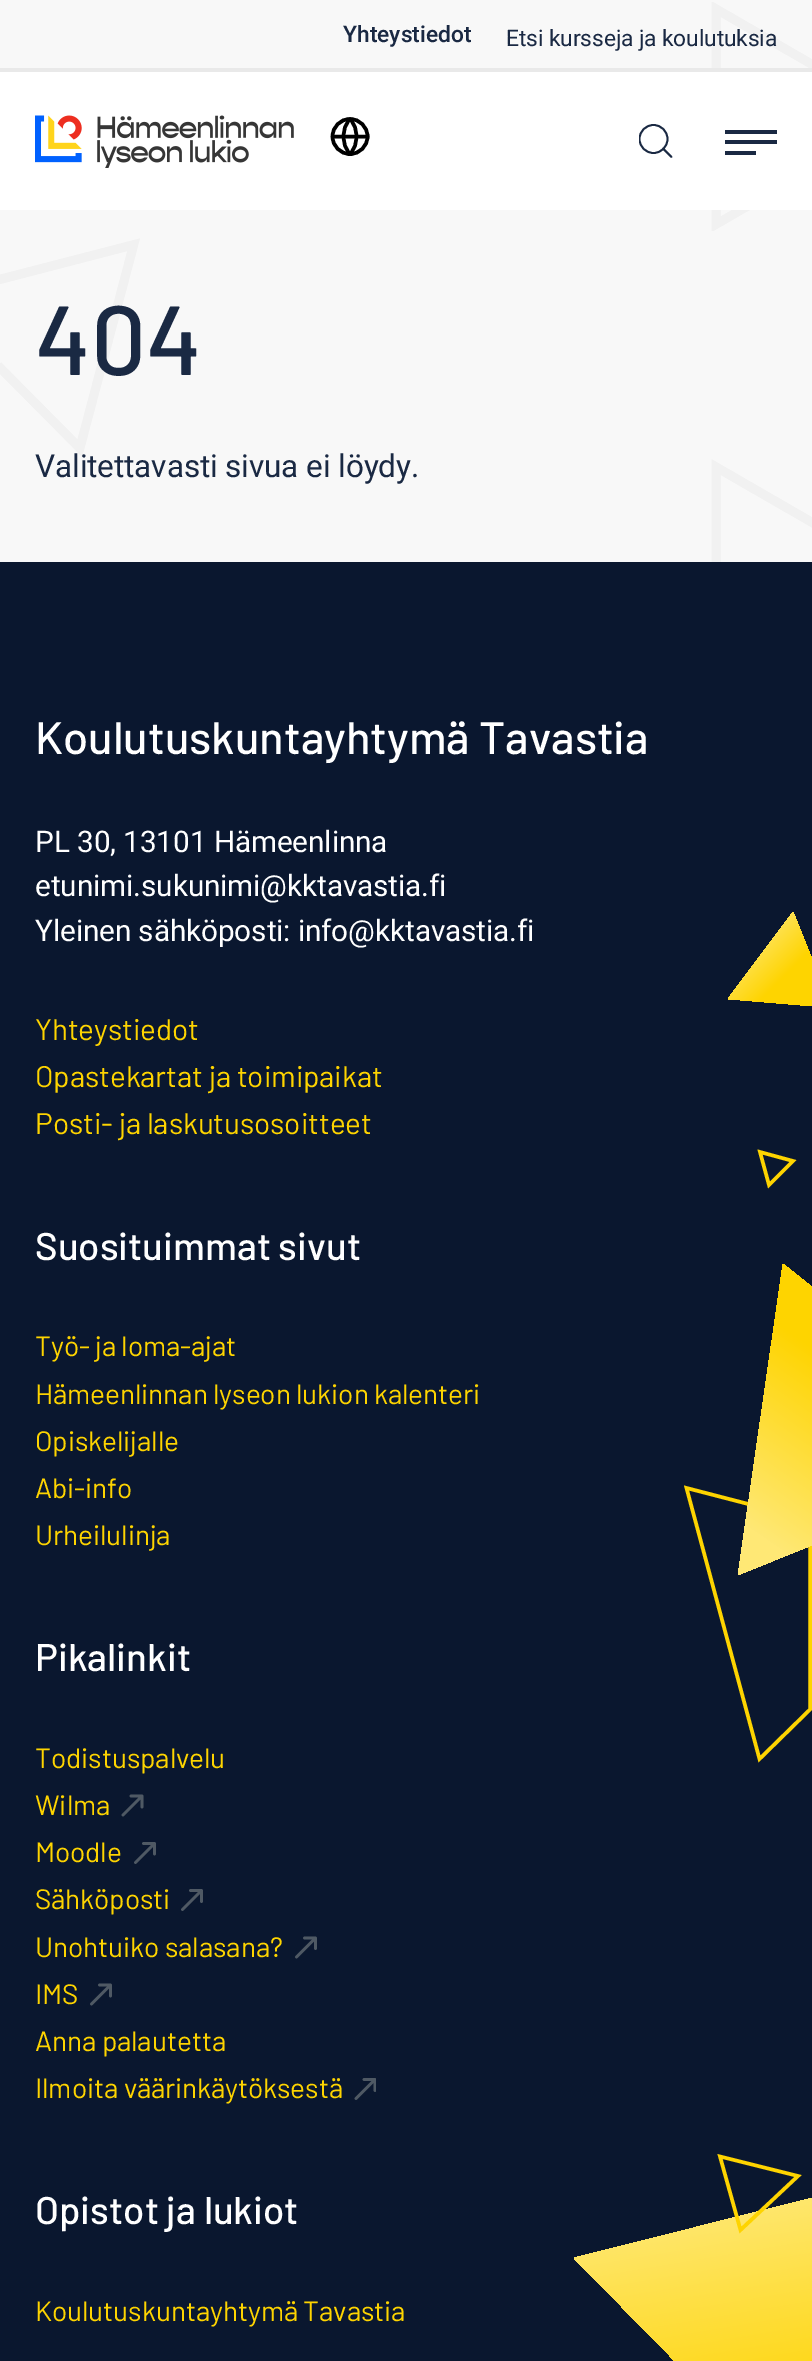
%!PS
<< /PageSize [812 2361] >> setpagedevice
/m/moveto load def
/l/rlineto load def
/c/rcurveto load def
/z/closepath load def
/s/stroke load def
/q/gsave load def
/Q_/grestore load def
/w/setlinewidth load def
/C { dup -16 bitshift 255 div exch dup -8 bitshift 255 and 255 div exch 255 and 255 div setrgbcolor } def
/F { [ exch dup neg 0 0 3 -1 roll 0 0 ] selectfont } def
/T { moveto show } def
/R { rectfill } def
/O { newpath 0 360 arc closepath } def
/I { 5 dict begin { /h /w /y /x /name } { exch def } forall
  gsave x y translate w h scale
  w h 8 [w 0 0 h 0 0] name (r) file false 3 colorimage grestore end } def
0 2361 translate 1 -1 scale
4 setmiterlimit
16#F8F8F8 C
0 0 812 2361 R
(1.rgb) 0 2 812 560 I
16#E9E9E9 C
0 68 812 4 R
/Heebo-Medium 22.75 F
16#1A2943 C
(Yhteystiedot) 343 42 T
/Heebo-Regular 22.75 F
506 46 m -.1 0 (Etsi kursseja ja koulutuksia) ashow
16#FFFFFF C
0 72 812 138 R
(2.rgb) 35 115 259 53 I
16#000000 C
3.5 w
350 136.5 17.5 O s
1 setlinecap
1 setlinejoin
332.5 136.5 m 35 0 l 350 119 m 9 10 9 25 0 35 c -9 -10 -9 -25 0 -35 c z s
q
639 124 33 34 rectclip
16#1A2943 C
1.8 w
0 setlinecap
0 setlinejoin
653.5 139 14 O s
Q_
16#1A2943 C
1.8 w
671.5 157 m -8.5 -8.5 l s
725 151 31 4 R
725 130 52 4 R
725 140 52 4 R
/Barlow-Medium 98 F
(404) 35 375 T
/Heebo-Regular 31.5 F
35 477 m -.1 0 (Valitettavasti sivua ei löydy.) ashow
16#0A172F C
0 562 812 1799 R
/Barlow-Medium 45.5 F
16#FFFFFF C
(Koulutuskuntayhtymä Tavastia) 35 754 T
/Heebo-Regular 29.75 F
35 852 m -.1 0 (PL 30, 13101 Hämeenlinna) ashow
35 896 m -.1 0 (etunimi.sukunimi@kktavastia.fi) ashow
35 941 m -.1 0 (Yleinen sähköposti: info@kktavastia.fi) ashow
/Barlow-Regular 29.75 F
16#FED400 C
35 1040 m -.1 0 (Yhteystiedot) ashow
35 1087 m -.1 0 (Opastekartat ja toimipaikat) ashow
35 1134 m -.1 0 (Posti- ja laskutusosoitteet) ashow
/Barlow-Medium 38.5 F
16#FFFFFF C
(Suosituimmat sivut) 35 1260 T
/Barlow-Regular 28 F
16#FED400 C
35 1356 m -.1 0 (Työ- ja loma-ajat) ashow
35 1404 m -.1 0 (Hämeenlinnan lyseon lukion kalenteri) ashow
35 1451 m -.1 0 (Opiskelijalle) ashow
35 1498 m -.1 0 (Abi-info) ashow
35 1545 m -.1 0 (Urheilulinja) ashow
/Barlow-Medium 38.5 F
16#FFFFFF C
(Pikalinkit) 35 1671 T
/Barlow-Regular 28 F
16#FED400 C
35 1768 m -.1 0 (Todistuspalvelu) ashow
35 1815 m -.1 0 (Wilma) ashow
16#4F5964 C
2.7 w
131 1796 m 11 0 l 0 11 l 142 1796 m -19 19 l s
16#FED400 C
35 1862 m -.1 0 (Moodle) ashow
16#4F5964 C
143.5 1843.5 m 11 0 l 0 10.5 l 154.5 1843.5 m -19 19 l s
16#FED400 C
35 1909 m -.1 0 (Sähköposti) ashow
16#4F5964 C
190.5 1890.5 m 11 0 l 0 11 l 201.5 1890.5 m -19 19 l s
16#FED400 C
35 1957 m -.1 0 (Unohtuiko salasana?) ashow
16#4F5964 C
304.5 1938 m 11 0 l 0 10.5 l 315.5 1938 m -19 19 l s
16#FED400 C
35 2004 m -.1 0 (IMS) ashow
16#4F5964 C
99.5 1985 m 11 0 l 0 11 l 110.5 1985 m -19 19 l s
16#FED400 C
35 2051 m -.1 0 (Anna palautetta) ashow
35 2098 m -.1 0 (Ilmoita väärinkäytöksestä) ashow
q
352 2076 24 24 rectclip
16#4F5964 C
364 2079.5 m 11 0 l 0 11 l 375 2079.5 m -19 19 l s
Q_
/Barlow-Medium 38.5 F
16#FFFFFF C
(Opistot ja lukiot) 35 2224 T
/Barlow-Regular 28 F
16#FED400 C
35 2321 m -.1 0 (Koulutuskuntayhtymä Tavastia) ashow
q 812 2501 m -238 -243 l 238 -60 l z eoclip newpath
<< /ShadingType 2 /ColorSpace /DeviceRGB /Coords [703 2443 663 2205] /Extend [true true] /Function << /FunctionType 2 /Domain [0 1] /C0 [.996 .831 0] /C1 [1 .91 .459] /N 1 >> >> shfill Q_
3.5 w
0 setlinecap
0 setlinejoin
686.5 1488 m 123.5 32 l 0 189.5 l -50.5 49.5 l z s
q 812 1545 m -74 30 l 45 -311 l 29 23 l z eoclip newpath
<< /ShadingType 2 /ColorSpace /DeviceRGB /Coords [782 1326 677 1478] /Extend [true true] /Function << /FunctionType 2 /Domain [0 1] /C0 [.996 .831 0] /C1 [1 .91 .459] /N 1 >> >> shfill Q_
760 1152 m 33 9 l -24 24 l z s
q 812 1006 m -84 -7 l 65 -87 l 19 47 l z eoclip newpath
<< /ShadingType 2 /ColorSpace /DeviceRGB /Coords [784 977 742 935] /Extend [true true] /Function << /FunctionType 2 /Domain [0 1] /C0 [.996 .831 0] /C1 [1 .91 .459] /N 1 >> >> shfill Q_
720 2156.5 m 78 19.5 l -57.5 54 l z s
showpage
